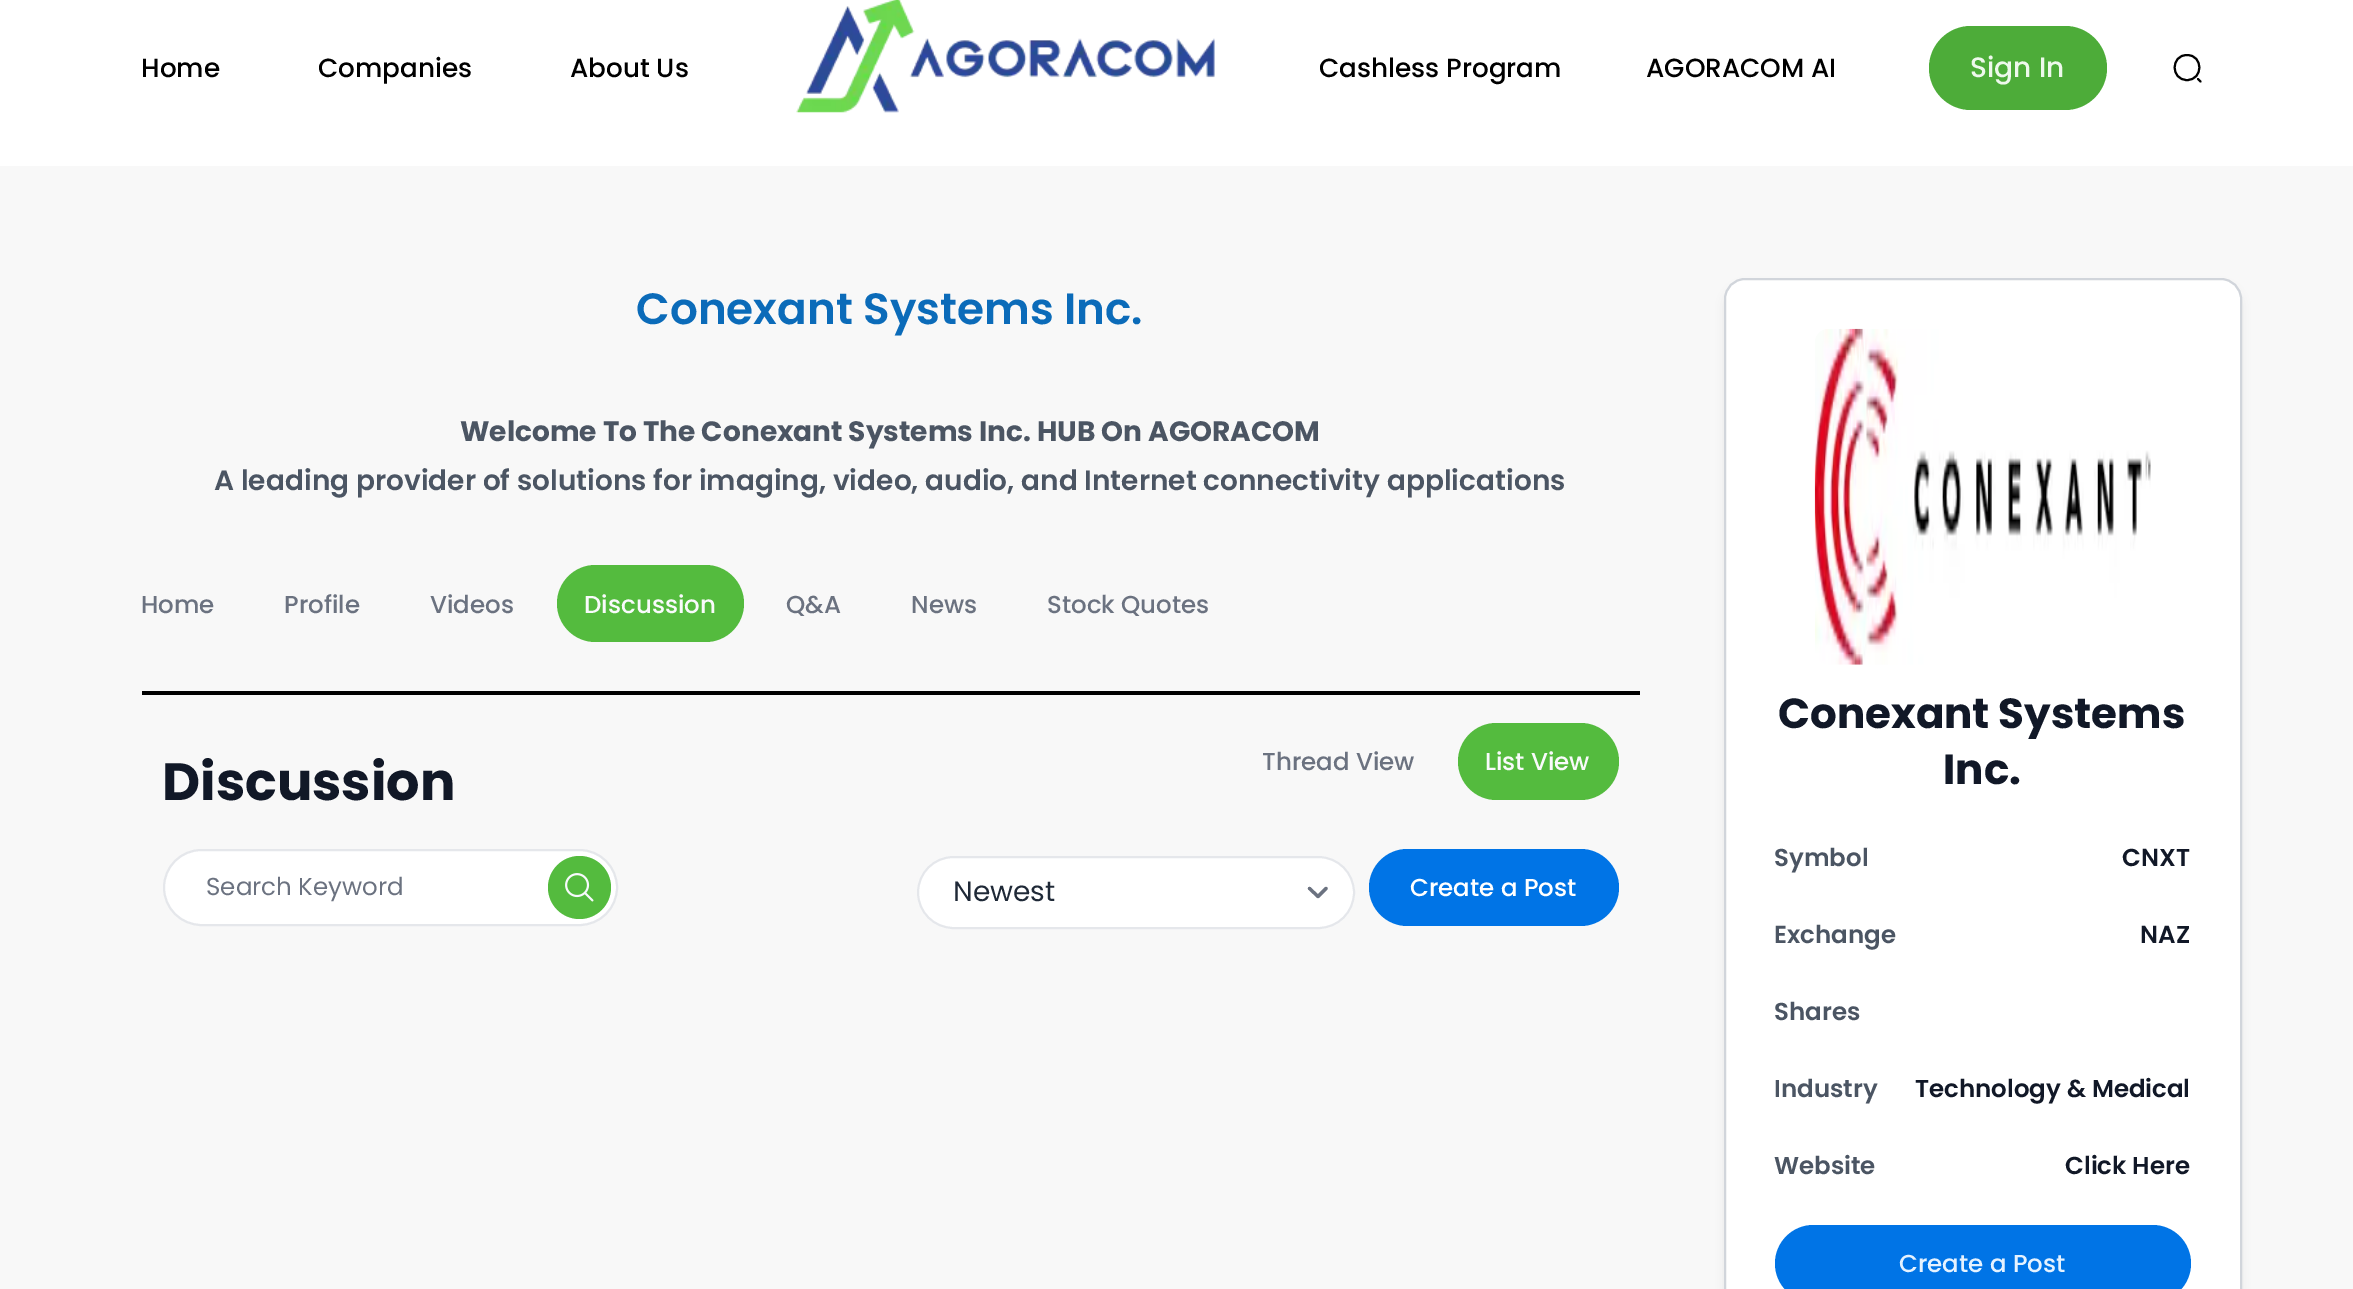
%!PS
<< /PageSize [2353 1289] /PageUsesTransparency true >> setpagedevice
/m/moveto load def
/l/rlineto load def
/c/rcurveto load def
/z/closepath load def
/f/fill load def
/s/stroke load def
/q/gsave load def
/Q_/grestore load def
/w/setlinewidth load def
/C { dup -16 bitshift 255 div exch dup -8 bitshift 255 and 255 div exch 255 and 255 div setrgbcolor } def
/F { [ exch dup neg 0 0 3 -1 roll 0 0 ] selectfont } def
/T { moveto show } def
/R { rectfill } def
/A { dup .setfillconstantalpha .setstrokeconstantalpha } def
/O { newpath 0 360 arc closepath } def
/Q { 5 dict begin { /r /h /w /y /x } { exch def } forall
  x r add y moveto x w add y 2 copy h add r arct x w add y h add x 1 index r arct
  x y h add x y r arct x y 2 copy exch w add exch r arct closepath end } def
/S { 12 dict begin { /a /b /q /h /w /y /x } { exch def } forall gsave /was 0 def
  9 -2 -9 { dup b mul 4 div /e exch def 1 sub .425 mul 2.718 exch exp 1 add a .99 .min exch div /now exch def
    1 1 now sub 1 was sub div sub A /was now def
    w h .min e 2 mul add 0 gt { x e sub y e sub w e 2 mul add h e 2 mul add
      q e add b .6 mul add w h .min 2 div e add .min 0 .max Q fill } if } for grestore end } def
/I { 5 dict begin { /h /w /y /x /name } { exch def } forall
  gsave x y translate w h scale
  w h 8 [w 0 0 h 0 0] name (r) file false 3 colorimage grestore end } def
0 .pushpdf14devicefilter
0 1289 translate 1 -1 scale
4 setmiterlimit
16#F8F8F8 C
0 0 2353 1289 R
16#FFFFFF C
0 0 2353 166 R
/Poppins-Medium 26.25 F
16#000000 C
(Home) 141 77 T
(Companies) 318 77 T
(About Us) 570 77 T
(1.rgb) 796 0 419 113 I
(Cashless Program) 1319 77 T
(AGORACOM AI) 1646 77 T
16#4DAC39 C
1929 26 178 84 42 Q f
/Poppins-Medium 28 F
16#EEF9EC C
(Sign In) 1970 77 T
16#000000 C
2 w
1 setlinecap
1 setlinejoin
2187 80 m 16.5 0 16.5 -25 0 -25 c -16.5 0 -16.5 25 0 25 c z 2200.5 81.5 m -2.5 -2.5 l s
/Poppins-SemiBold 43.75 F
16#0B6BB9 C
(Conexant Systems Inc.) 636 324 T
/Poppins-Bold 28 F
16#4B5563 C
(Welcome To The Conexant Systems Inc. HUB On AGORACOM) 460 441 T
/Poppins-SemiBold 28 F
(A leading provider of solutions for imaging, video, audio, and Internet connectivity applications) 214 490 T
/Poppins-Medium 24.5 F
16#6B7280 C
(Home) 141 613 T
(Profile) 284 613 T
(Videos) 430 613 T
16#54BB3E C
557 565 187 77 38.5 Q f
16#F9FAFB C
(Discussion) 584 613 T
16#6B7280 C
(Q&A) 786 613 T
(News) 911 613 T
(Stock Quotes) 1047 613 T
16#000000 C
142 691 1498 4 R
/Poppins-Bold 52.5 F
16#111827 C
(Discussion) 162 800 T
/Poppins-Medium 24.5 F
16#6B7280 C
(Thread View) 1262 770 T
16#54BB3E C
1458 723 161 77 38.5 Q f
16#F9FAFB C
(List View) 1485 770 T
16#FFFFFF C
164 850 453 75 37.5 Q q f Q_
16#E5E7EB C
0 setlinecap
0 setlinejoin
s
/Poppins-Regular 24.5 F
16#6B7280 C
(Search Keyword) 206 895 T
16#54BB3E C
579.5 887.5 31.5 O f
(2.rgb) 565 873 29 29 I
16#FFFFFF C
917 856 438 73 36.5 Q f
16#6B7280 C
3.2 w
1 setlinecap
1 setlinejoin
1309.5 888.5 m 8.5 8 l 8 -8 l s
16#E5E7EB C
2 w
0 setlinecap
0 setlinejoin
918 857 436 71 35.5 Q s
/Poppins-Regular 28 F
16#1F2937 C
(Newest) 953 901 T
16#0074E6 C
1369 849 250 77 38.5 Q f
/Poppins-Medium 24.5 F
16#FFFFFF C
(Create a Post) 1410 896 T
16#000000 C
1726 287 514 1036 19 5 .1 S
16#FFFFFF C
1725 279 516 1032 20 Q q f Q_
16#D1D5DB C
s
(3.rgb) 1814 328 337 337 I
/Poppins-Bold 42 F
16#111827 C
(Conexant Systems) 1778 728 T
(Inc.) 1943 784 T
/Poppins-SemiBold 24.5 F
16#4B5563 C
(Symbol) 1774 866 T
16#111827 C
(CNXT) 2122 866 T
16#4B5563 C
(Exchange) 1774 943 T
16#111827 C
(NAZ) 2140 943 T
16#4B5563 C
(Shares) 1774 1020 T
(Industry) 1774 1097 T
16#111827 C
(Technology & Medical) 1915 1097 T
16#4B5563 C
(Website) 1774 1174 T
16#111827 C
(Click Here) 2065 1174 T
16#0074E6 C
1775 1225 416 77 38.5 Q f
/Poppins-Medium 24.5 F
16#E5F2FF C
(Create a Post) 1899 1272 T
.poppdf14devicefilter showpage
